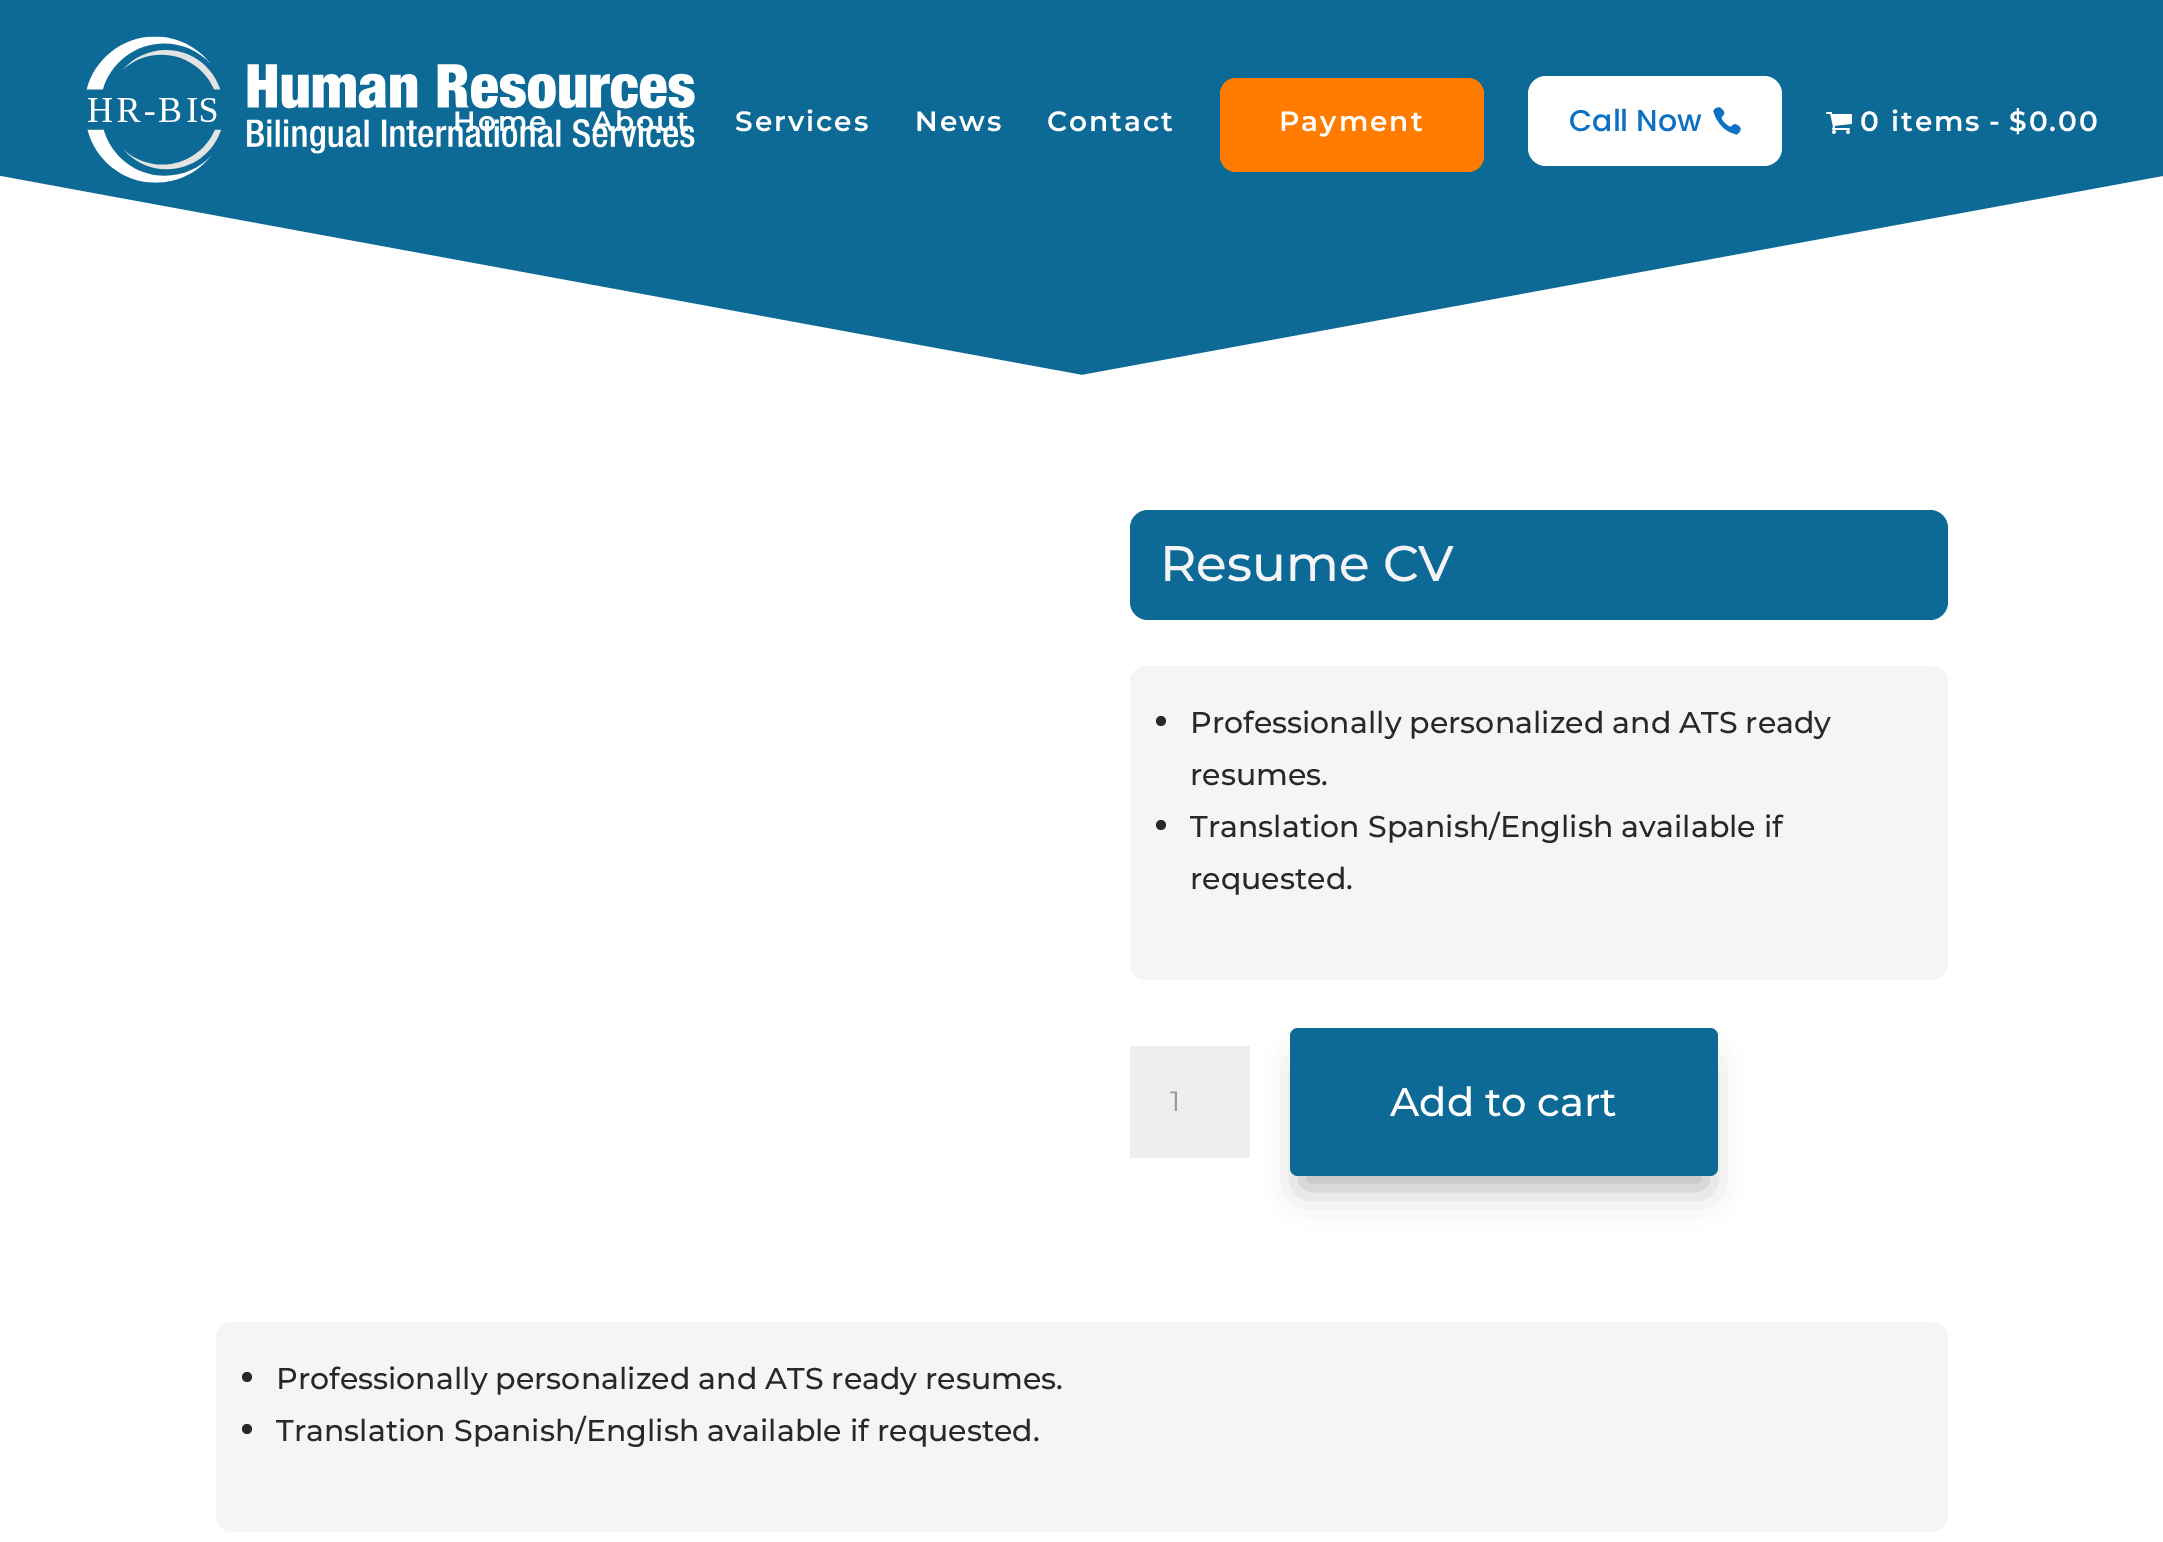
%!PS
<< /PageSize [2163 1542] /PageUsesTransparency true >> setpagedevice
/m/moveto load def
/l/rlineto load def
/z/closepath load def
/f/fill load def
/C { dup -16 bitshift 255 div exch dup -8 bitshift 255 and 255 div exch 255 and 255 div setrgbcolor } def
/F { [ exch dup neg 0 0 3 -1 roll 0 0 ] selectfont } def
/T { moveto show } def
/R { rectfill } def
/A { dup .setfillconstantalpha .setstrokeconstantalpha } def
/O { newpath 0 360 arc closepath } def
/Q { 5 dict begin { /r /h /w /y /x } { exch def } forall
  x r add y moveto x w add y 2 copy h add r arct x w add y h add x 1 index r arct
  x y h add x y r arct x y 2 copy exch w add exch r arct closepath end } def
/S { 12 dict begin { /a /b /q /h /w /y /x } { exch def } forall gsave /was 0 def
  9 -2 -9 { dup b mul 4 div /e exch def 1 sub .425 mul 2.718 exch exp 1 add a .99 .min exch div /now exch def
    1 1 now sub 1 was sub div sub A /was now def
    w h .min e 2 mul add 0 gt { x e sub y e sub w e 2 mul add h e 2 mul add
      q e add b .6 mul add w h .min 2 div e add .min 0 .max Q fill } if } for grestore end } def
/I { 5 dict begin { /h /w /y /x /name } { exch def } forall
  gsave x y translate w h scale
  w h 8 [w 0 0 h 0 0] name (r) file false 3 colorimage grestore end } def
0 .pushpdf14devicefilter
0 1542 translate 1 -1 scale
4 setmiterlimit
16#FFFFFF C
0 0 2163 1542 R
16#0D6A96 C
0 0 2163 375 R
16#FFFFFF C
1082 375 m -1082 -199 l 0 200 l 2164 0 l 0 -200 l z f
(1.rgb) 86 36 609 147 I
/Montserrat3-Thin 28 F
453 131 m 2 0 (Home) ashow
592 131 m 2 0 (About) ashow
735 131 m 2 0 (Services) ashow
915 131 m 2 0 (News) ashow
1047 131 m 2 0 (Contact) ashow
16#FF7C00 C
1220 78 264 94 16 Q f
16#FFFFFF C
1279 131 m 2 0 (Payment) ashow
1528 76 254 90 18 Q f
/Poppins-Medium 30 F
16#0C71C3 C
(Call Now) 1569 131 T
(2.rgb) 1713 107 28 28 I
(3.rgb) 1826 112 26 22 I
/Montserrat3-Thin 28 F
16#FFFFFF C
1860 131 m 2 0 (0 items) ashow
1989 131 m 2 0 (-) ashow
2009 131 m 2 0 ($0.00) ashow
16#0D6A96 C
1130 510 818 110 18 Q f
/Montserrat-Thin 50 F
16#F5F5F7 C
(Resume CV) 1160 581 T
1130 666 818 314 16 Q f
16#282828 C
1161 721 5 O f
/Montserrat-Thin 30 F
(Professionally personalized and ATS ready) 1190 733 T
(resumes.) 1190 785 T
1161 825 5 O f
(Translation Spanish/English available if) 1190 837 T
(requested.) 1190 889 T
16#EEEEEE C
1130 1046 120 112 R
/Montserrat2-Thin 28 F
16#999999 C
(1) 1170 1111 T
16#000000 C
1302 1064 404 124 0 18 .3 S
16#0D6A96 C
1290 1028 428 148 8 Q f
/Montserrat-Thin 40 F
16#FFFFFF C
(Add to cart) 1390 1116 T
16#F5F5F7 C
216 1322 1732 210 16 Q f
16#282828 C
247 1377 5 O f
/Montserrat-Thin 30 F
(Professionally personalized and ATS ready resumes.) 276 1389 T
247 1429 5 O f
(Translation Spanish/English available if requested.) 276 1441 T
.poppdf14devicefilter showpage
